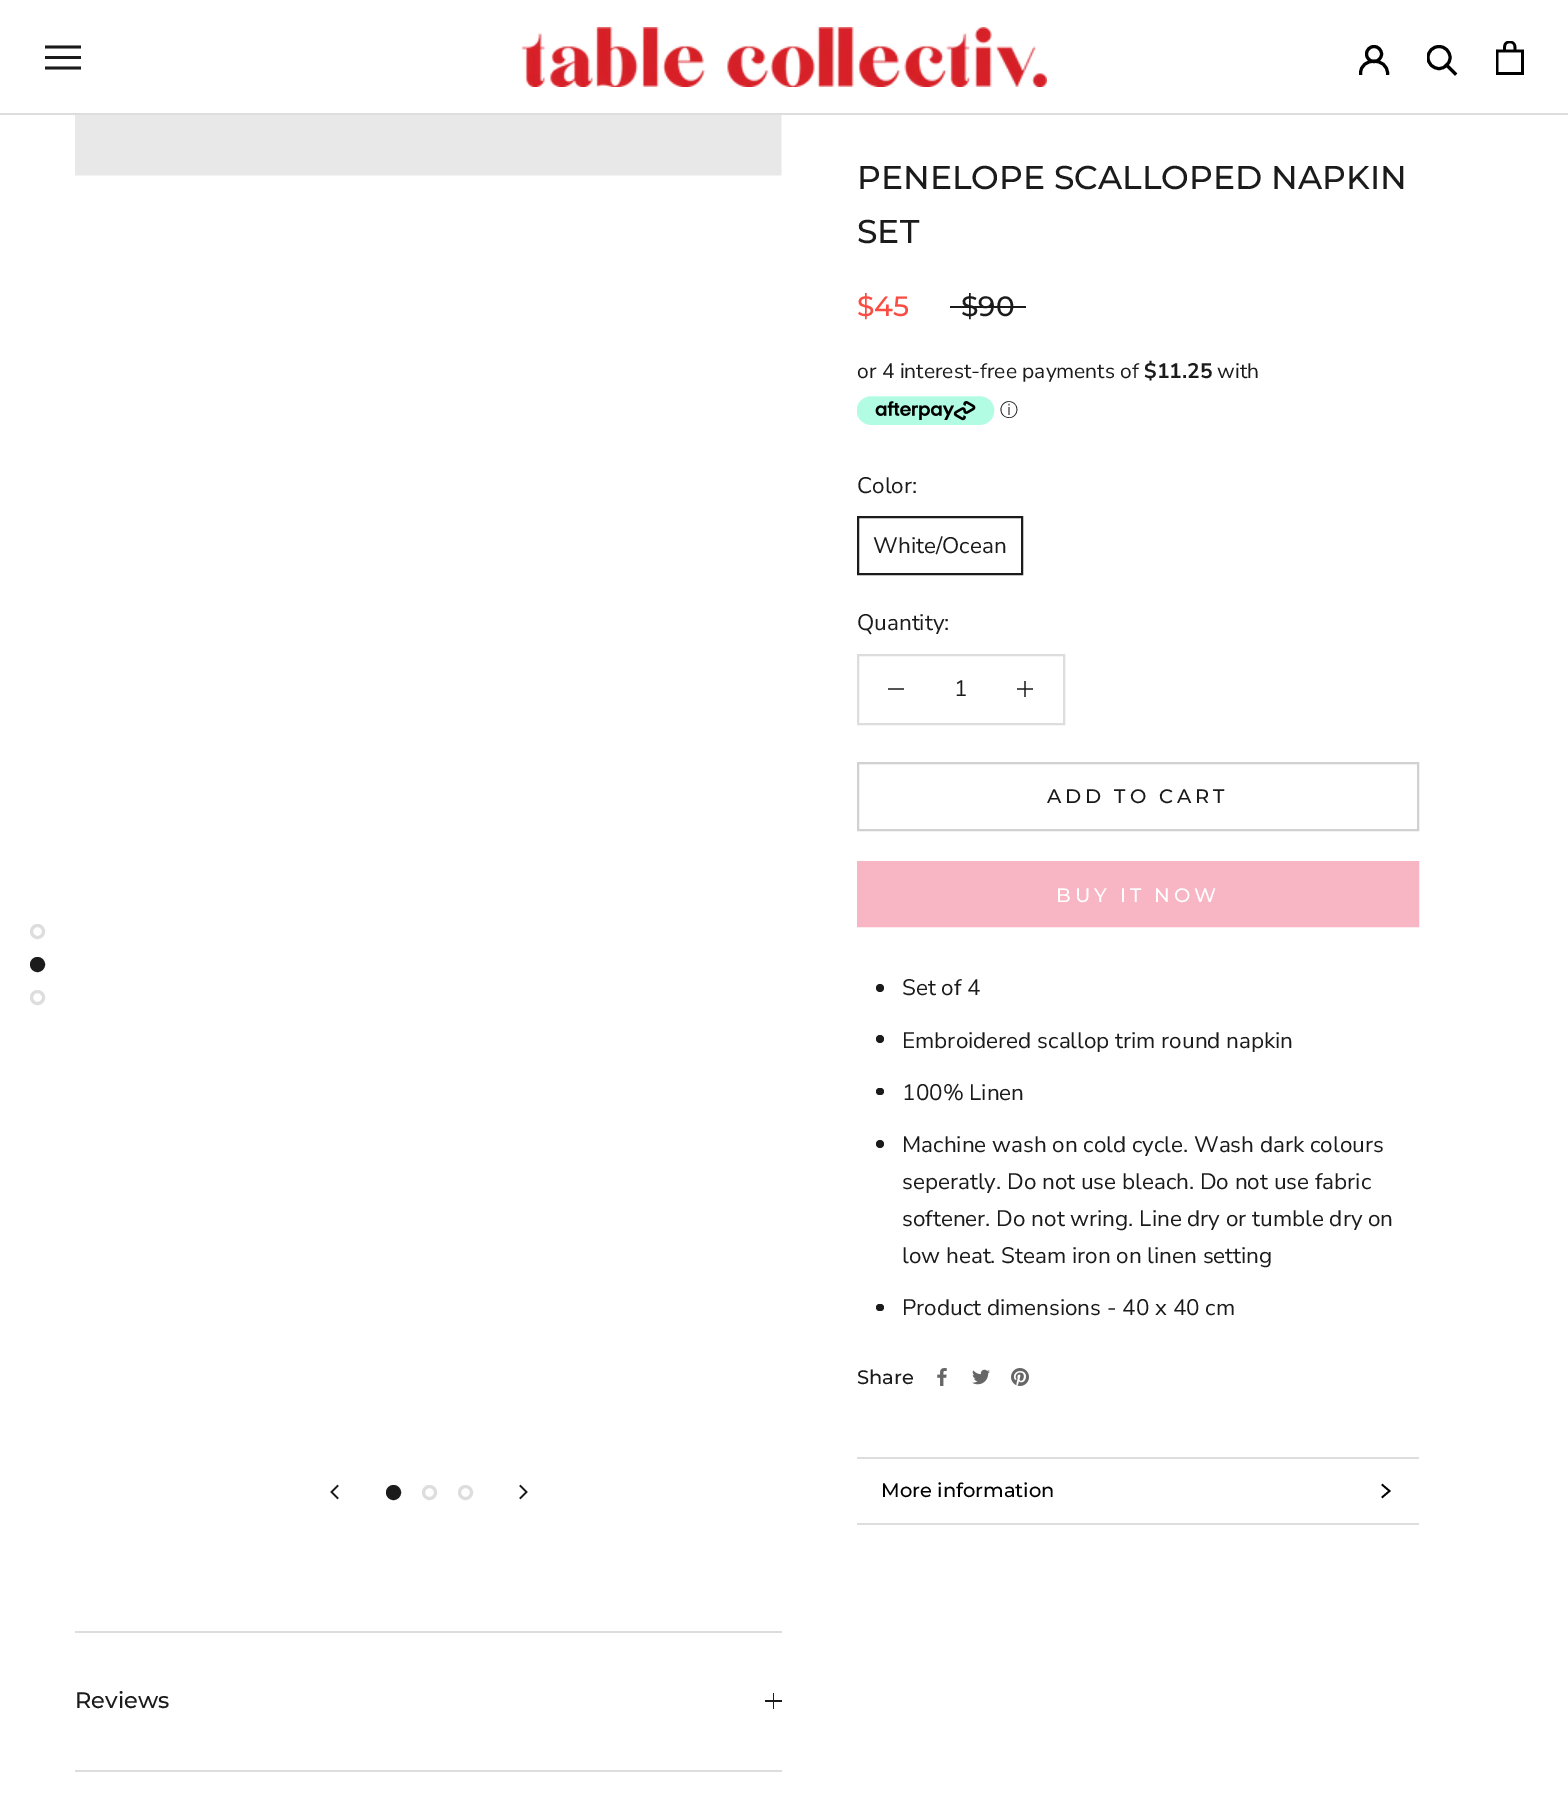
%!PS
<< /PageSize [1568 1815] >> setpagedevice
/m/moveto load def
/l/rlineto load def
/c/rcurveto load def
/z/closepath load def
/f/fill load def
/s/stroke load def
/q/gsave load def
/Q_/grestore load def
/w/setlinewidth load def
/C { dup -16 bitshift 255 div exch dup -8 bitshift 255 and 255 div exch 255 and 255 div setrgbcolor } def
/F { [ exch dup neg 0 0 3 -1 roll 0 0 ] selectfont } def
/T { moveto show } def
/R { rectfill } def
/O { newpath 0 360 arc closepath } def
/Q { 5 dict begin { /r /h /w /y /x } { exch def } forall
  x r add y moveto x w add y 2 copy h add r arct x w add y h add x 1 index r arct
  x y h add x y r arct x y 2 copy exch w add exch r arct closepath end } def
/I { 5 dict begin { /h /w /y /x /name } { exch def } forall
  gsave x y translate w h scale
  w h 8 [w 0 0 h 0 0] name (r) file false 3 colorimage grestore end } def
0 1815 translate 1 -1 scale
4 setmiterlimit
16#FFFFFF C
0 0 1568 1815 R
16#555454 C
1017 688 16 2 R
16#DDDDDD C
0 113 1568 2 R
16#1C1B1B C
45 69.5 m 0 -3 l 36 0 l 0 3 l z 45 56 m 36 0 l 0 3 l -36 0 l z 45 45.5 m 36 0 l 0 3 l -36 0 l z f
(1.rgb) 522 27 525 60 I
16#000000 C
3 w
2 setlinecap
1360.5 73.5 m 0 -16.5 27 -16.5 27 0 c s
0 setlinecap
1374 54 7.5 O s
2 setlinecap
1455 73.5 m -8.5 -8.5 l s
q
1427 45 31 32 rectclip
0 setlinecap
1439 57.5 11 O s
Q_
(2.rgb) 1496 41 28 34 I
(3.rgb) 75 115 707 61 I
16#DDDDDD C
0 setlinecap
37.5 931.5 6 O s
16#1C1B1B C
37.5 964.5 6 O q f Q_
s
16#DDDDDD C
37.5 997.5 6 O s
16#1C1B1B C
1.5 w
2 setlinecap
337.5 1498 m -6 -6 l 6 -6 l s
393.5 1492.5 6 O q f Q_
3 w
0 setlinecap
s
16#DDDDDD C
429.5 1492.5 6 O s
465.5 1492.5 6 O s
16#1C1B1B C
1.5 w
2 setlinecap
520.5 1498 m 6 -6 l -6 -6 l s
/Montserrat-Medium 33 F
(PENELOPE SCALLOPED NAPKIN) 857 189 T
(SET) 857 243 T
/Montserrat-Medium 28 F
16#F94C43 C
($45) 857 316 T
16#1C1B1B C
($90) 961 316 T
950 306 76 2 R
/NunitoSans-Regular 21 F
(or 4 interest-free payments of) 857 378 T
/NunitoSans-Bold 21 F
($11.25) 1144 378 T
/NunitoSans-Regular 21 F
(with) 1217 378 T
(4.rgb) 857 396 138 29 I
/WenQuanYiZenHei-Medium 18 F
(ⓘ) 1000 416 T
/NunitoSans-Regular 22.5 F
(Color:) 857 493 T
2 w
0 setlinecap
858 517 164 57 rectstroke
(White/Ocean) 873 553 T
(Quantity:) 857 630 T
16#DDDDDD C
858 655 206 69 rectstroke
16#555454 C
888 688 16 2 R
16#1C1B1B C
(1) 954 696 T
16#555454 C
1024 681 2 16 R
16#2A2929 C
1024 688 2 2 R
16#D2D1D1 C
858 763 560 67 rectstroke
/Montserrat-Medium 19.5 F
16#1C1B1B C
1047 803 m 3.9 0 (ADD TO CART) ashow
16#F8B5C4 C
858 862 560 64 rectstroke
859 863 558 62 R
16#FFFFFF C
1056 902 m 3.9 0 (BUY IT NOW) ashow
16#1C1B1B C
880 988 4 O f
/NunitoSans-Regular 22.5 F
(Set of 4) 902 995 T
880 1039 4 O f
(Embroidered scallop trim round napkin) 902 1048 T
876 1088 8 7 3.5 Q f
(100% Linen) 902 1100 T
880 1144 4 O f
(Machine wash on cold cycle. Wash dark colours) 902 1152 T
(seperatly. Do not use bleach. Do not use fabric) 902 1189 T
(softener. Do not wring. Line dry or tumble dry on) 902 1226 T
(low heat. Steam iron on linen setting) 902 1263 T
876 1304 8 7 3.5 Q f
(Product dimensions - 40 x 40 cm) 902 1315 T
/Montserrat-Medium 19.5 F
(Share) 857 1384 T
(5.rgb) 937 1368 10 18 I
(6.rgb) 972 1369 18 16 I
(7.rgb) 1011 1368 18 18 I
16#DDDDDD C
857 1457 562 2 R
857 1523 562 2 R
16#000000 C
(More information) 881 1497 T
1.7 w
2 setlinecap
1382.5 1485 m 7 6 l -7 6 l s
16#DDDDDD C
75 1631 707 2 R
75 1770 707 2 R
/Montserrat-Medium 22.5 F
16#1C1B1B C
(Reviews) 75 1708 T
773 1693 1 16 R
765 1700 17 2 R
showpage
